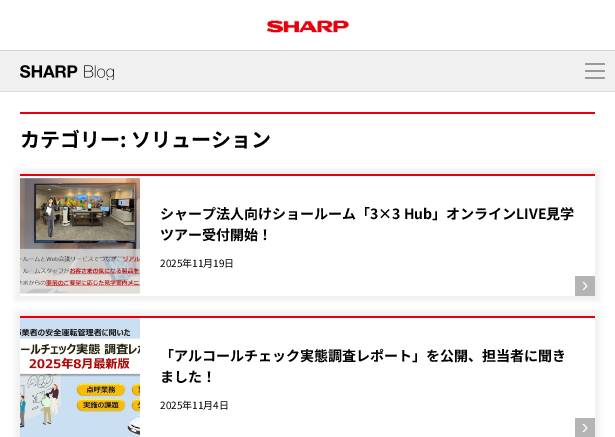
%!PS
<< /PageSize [615 437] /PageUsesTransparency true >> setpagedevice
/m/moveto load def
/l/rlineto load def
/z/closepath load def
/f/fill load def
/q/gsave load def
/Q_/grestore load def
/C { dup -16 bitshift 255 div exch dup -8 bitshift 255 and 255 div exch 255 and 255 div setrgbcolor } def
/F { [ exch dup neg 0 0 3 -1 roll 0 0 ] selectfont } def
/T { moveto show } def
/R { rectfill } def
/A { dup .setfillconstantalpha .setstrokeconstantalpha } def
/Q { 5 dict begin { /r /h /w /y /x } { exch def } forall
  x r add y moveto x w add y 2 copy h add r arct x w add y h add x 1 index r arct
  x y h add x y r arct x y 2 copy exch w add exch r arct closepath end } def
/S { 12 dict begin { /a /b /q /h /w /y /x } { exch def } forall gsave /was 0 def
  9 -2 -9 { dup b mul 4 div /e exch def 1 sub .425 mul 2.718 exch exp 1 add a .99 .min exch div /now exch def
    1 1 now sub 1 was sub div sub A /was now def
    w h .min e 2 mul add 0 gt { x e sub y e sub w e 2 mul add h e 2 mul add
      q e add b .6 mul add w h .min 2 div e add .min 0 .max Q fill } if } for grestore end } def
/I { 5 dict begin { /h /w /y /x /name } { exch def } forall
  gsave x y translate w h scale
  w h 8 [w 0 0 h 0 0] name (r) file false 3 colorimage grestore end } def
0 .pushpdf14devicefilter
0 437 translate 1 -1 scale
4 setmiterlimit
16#FFFFFF C
0 0 615 437 R
16#D3D3D3 C
0 50 615 1 R
(1.rgb) 267 20 82 13 I
16#F0F0F0 C
0 51 615 40 R
16#DCDCDC C
0 91 615 1 R
(2.rgb) 20 65 94 15 I
16#999999 C
585 70 20 2 1 Q f
585 63 20 2 1 Q f
585 77 20 2 1 Q f
16#E6000D C
20 112 575 2 R
/NotoSansJP-Bold 20 F
16#000000 C
(カテゴリー: ソリューション) 20 147 T
q
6 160 m 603 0 l 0 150 l -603 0 l z 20 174 m 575 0 l 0 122 l -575 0 l z eoclip newpath
15 169 585 132 0 2.5 .05 S
Q_
16#E6000D C
20 174 575 2 R
(3.rgb) 20 177 120 117 I
/NotoSansJP-Bold 14 F
16#000000 C
(シャープ法人向けショールーム「3×3 Hub」オンラインLIVE見学) 160 219 T
(ツアー受付開始！) 160 240 T
/NotoSansJP-Regular 10 F
(2025年11月19日) 160 267 T
16#B4B4B4 C
575 276 20 20 R
(4.rgb) 582 282 6 8 I
q
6 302 m 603 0 l 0 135 l -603 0 l z 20 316 m 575 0 l 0 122 l -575 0 l z eoclip newpath
16#000000 C
15 311 585 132 0 2.5 .05 S
Q_
16#E6000D C
20 316 575 2 R
(5.rgb) 20 318 120 119 I
/NotoSansJP-Bold 14 F
16#000000 C
(「アルコールチェック実態調査レポート」を公開、担当者に聞き) 160 361 T
(ました！) 160 382 T
/NotoSansJP-Regular 10 F
(2025年11月4日) 160 409 T
16#B4B4B4 C
575 418 20 19 R
(4.rgb) 582 424 6 8 I
.poppdf14devicefilter showpage
